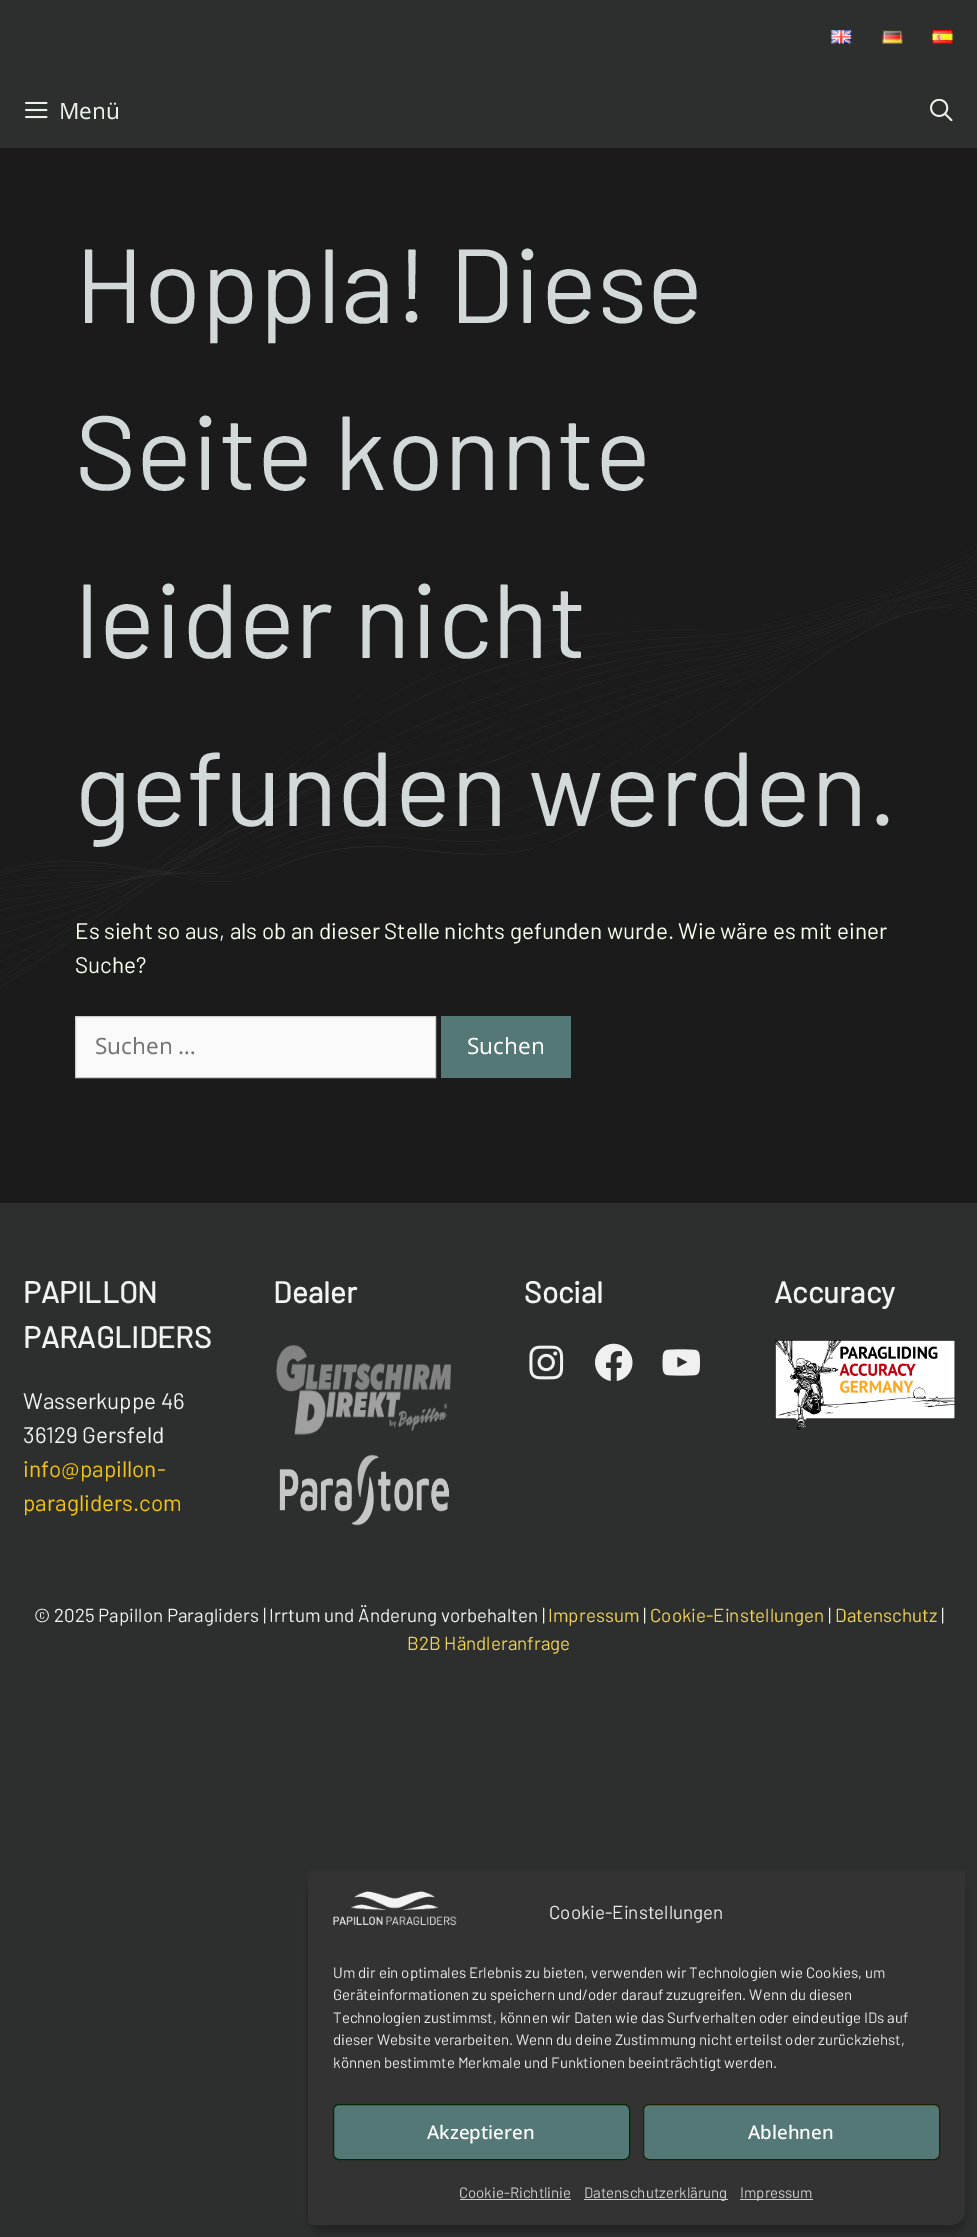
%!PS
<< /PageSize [977 2237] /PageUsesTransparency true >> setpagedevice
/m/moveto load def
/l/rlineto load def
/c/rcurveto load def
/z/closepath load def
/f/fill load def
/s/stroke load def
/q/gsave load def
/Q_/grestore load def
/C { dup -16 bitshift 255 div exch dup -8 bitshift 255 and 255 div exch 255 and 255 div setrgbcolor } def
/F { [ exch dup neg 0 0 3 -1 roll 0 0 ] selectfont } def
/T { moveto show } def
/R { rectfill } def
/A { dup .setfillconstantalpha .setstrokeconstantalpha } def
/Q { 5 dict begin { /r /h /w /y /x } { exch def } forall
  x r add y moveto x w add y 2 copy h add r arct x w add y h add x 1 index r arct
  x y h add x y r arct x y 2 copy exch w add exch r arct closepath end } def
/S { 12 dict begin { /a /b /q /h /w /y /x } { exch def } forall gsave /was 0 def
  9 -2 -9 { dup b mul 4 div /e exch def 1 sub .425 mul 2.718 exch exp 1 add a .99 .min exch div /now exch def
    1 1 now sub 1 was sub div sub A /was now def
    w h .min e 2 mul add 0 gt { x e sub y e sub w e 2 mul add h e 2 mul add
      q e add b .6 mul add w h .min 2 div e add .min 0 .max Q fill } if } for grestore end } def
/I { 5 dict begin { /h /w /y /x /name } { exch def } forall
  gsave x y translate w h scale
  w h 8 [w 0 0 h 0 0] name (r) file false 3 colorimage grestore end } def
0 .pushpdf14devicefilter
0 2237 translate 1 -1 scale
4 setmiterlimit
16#2D2E2E C
0 0 977 2237 R
16#1B1B1B C
0 148 977 1055 R
(1.rgb) 0 544 977 444 I
(2.rgb) 831 30 21 14 I
(3.rgb) 882 30 21 14 I
(4.rgb) 932 30 21 14 I
(5.rgb) 25 101 23 18 I
/NotoSans-Regular 22.5 F
16#E8F2E9 C
(Menü) 59 119 T
(6.rgb) 930 99 23 22 I
/Barlow-Regular 105 F
16#D3D9D9 C
(Hoppla! Diese) 75 323 T
(Seite konnte) 75 490 T
(leider nicht) 75 658 T
(gefunden werden.) 75 826 T
/Barlow-Regular 22.5 F
16#F7FFEF C
(Es sieht so aus, als ob an dieser Stelle nichts gefunden wurde. Wie wäre es mit einer) 75 939 T
(Suche?) 75 973 T
16#FAFAFA C
75.5 1016.5 m 360 0 l 0 61 l -360 0 l z q f Q_
16#CCCCCC C
s
/NotoSans-Regular 22.5 F
16#757575 C
(Suchen …) 95 1054 T
16#537876 C
441 1016 130 62 R
16#FFFFFF C
(Suchen) 467 1054 T
/Barlow-Bold 30 F
16#F2F2F2 C
(PAPILLON) 23 1303 T
(PARAGLIDERS) 23 1348 T
/Barlow-Regular 22.5 F
(Wasserkuppe 46) 23 1409 T
(36129 Gersfeld) 23 1443 T
16#F1C40F C
(info@papillon-) 23 1477 T
(paragliders.com) 23 1511 T
/Barlow-Bold 30 F
16#F2F2F2 C
(Dealer) 273 1303 T
(7.rgb) 276 1344 175 91 I
(8.rgb) 279 1454 171 72 I
(Social) 524 1303 T
(9.rgb) 529 1345 35 35 I
(10.rgb) 595 1343 38 38 I
(11.rgb) 662 1349 38 27 I
(Accuracy) 774 1303 T
(12.rgb) 775 1340 180 90 I
/Barlow-Regular 18.75 F
(© 2025 Papillon Paragliders | Irrtum und Änderung vorbehalten |) 34 1622 T
16#F2D252 C
(Impressum) 548 1622 T
16#F2F2F2 C
(|) 643 1622 T
16#F2D252 C
(Cookie-Einstellungen) 650 1622 T
16#F2F2F2 C
(|) 828 1622 T
16#F2D252 C
(Datenschutz) 835 1622 T
16#F2F2F2 C
(|) 941 1622 T
16#F2D252 C
(B2B Händleranfrage) 407 1650 T
16#000000 C
308 1879 657 354 15 4 .23 S
16#333333 C
312 1871 m 649 0 l 2 0 4 2 4 4 c 0 335 l 0 8.5 -6.5 15 -15 15 c -638 0 l -2 0 -4 -2 -4 -4 c 0 -346 l 0 -2 2 -4 4 -4 c z f
(13.rgb) 333 1891 124 35 I
16#EAEAEA C
(Cookie-Einstellungen) 549 1919 T
/Barlow-Regular 15 F
(Um dir ein optimales Erlebnis zu bieten, verwenden wir Technologien wie Cookies, um) 333 1978 T
(Geräteinformationen zu speichern und/oder darauf zuzugreifen. Wenn du diesen) 333 2000 T
(Technologien zustimmst, können wir Daten wie das Surfverhalten oder eindeutige IDs auf) 333 2023 T
(dieser Website verarbeiten. Wenn du deine Zustimmung nicht erteilst oder zurückziehst,) 333 2045 T
(können bestimmte Merkmale und Funktionen beeinträchtigt werden.) 333 2068 T
16#537876 C
333.5 2104.5 296 55 5.5 Q q f Q_
16#002806 C
s
/NotoSans-Medium 18.75 F
16#FFFFFF C
(Akzeptieren) 427 2139 T
16#537876 C
643.5 2104.5 296 55 5.5 Q q f Q_
16#1F2100 C
s
16#FFFFFF C
(Ablehnen) 748 2139 T
/Barlow-Regular 15 F
16#CECECE C
(Cookie-Richtlinie) 459 2198 T
460 2199 111 1 R
584 2199 144 1 R
(Datenschutzerklärung) 584 2198 T
740 2199 73 1 R
(Impressum) 740 2198 T
.poppdf14devicefilter showpage
